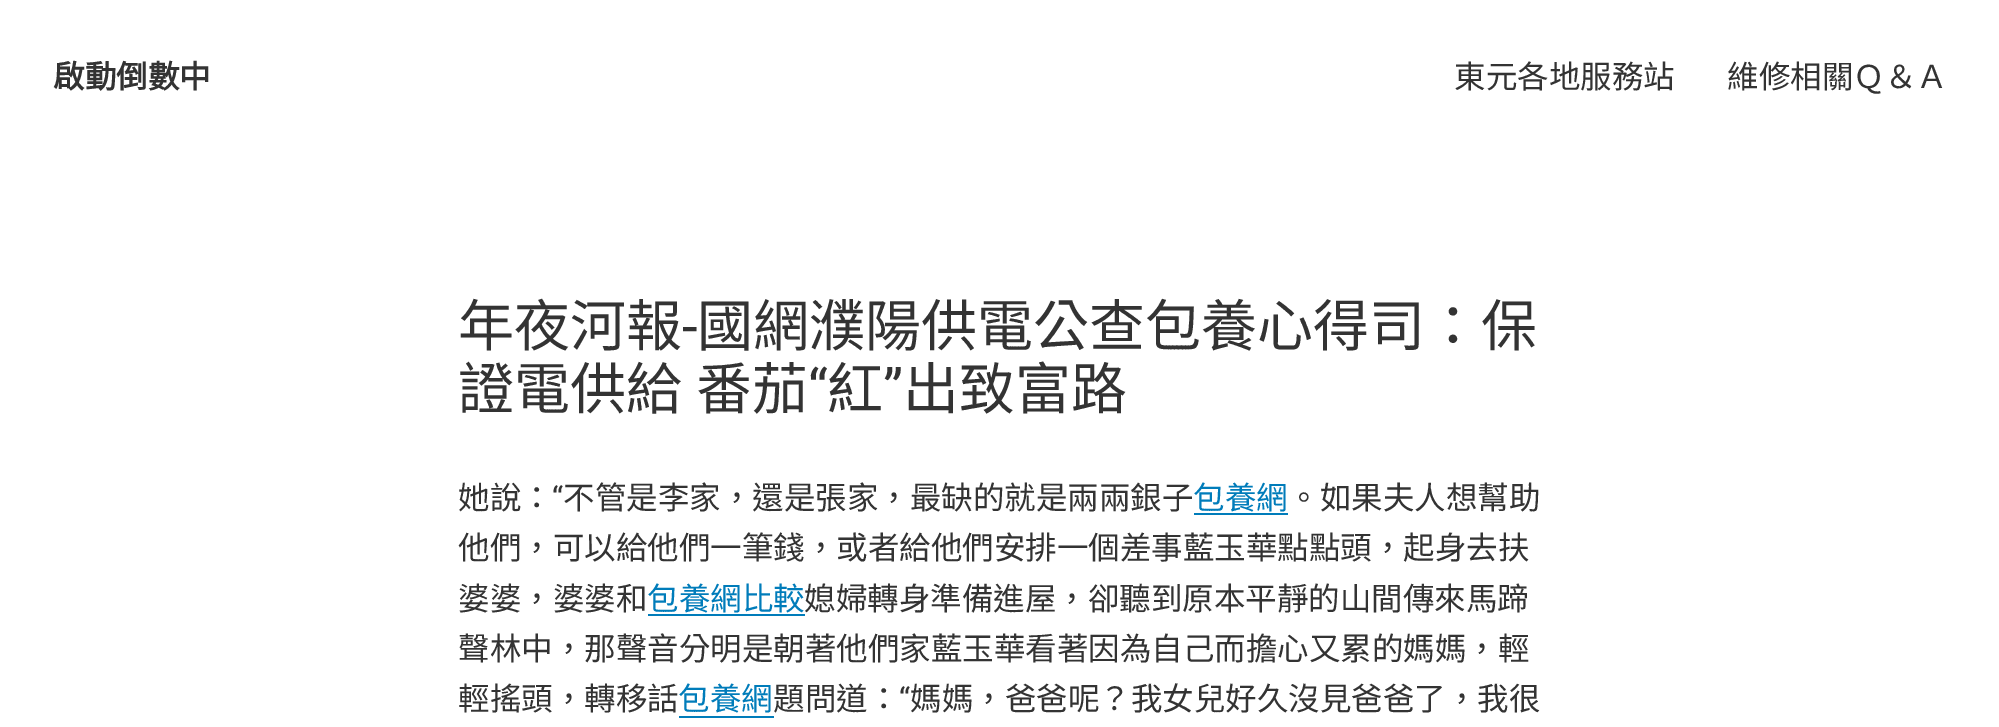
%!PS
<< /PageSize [1999 727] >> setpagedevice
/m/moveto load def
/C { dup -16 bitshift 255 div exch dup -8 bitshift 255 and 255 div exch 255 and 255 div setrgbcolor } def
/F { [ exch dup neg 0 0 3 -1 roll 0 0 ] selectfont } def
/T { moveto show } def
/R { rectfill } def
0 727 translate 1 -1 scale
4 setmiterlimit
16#FFFFFF C
0 0 1999 727 R
/NotoSansCJKTC-Bold 31.5 F
16#333333 C
(啟動倒數中) 53 88 T
/NotoSansCJKTC-Regular 31.5 F
(東元各地服務站) 1454 88 T
(維修相關Ｑ＆Ａ) 1727 88 T
/NotoSansCJKTC-Regular 56 F
(年夜河報) 458 346 T
/Roboto-Regular 56 F
(-) 682 346 T
/NotoSansCJKTC-Regular 56 F
(國網濮陽供電公查包養心得司：保) 697 346 T
458 409 m 1 0 32 (證電供給 番茄) widthshow
/Roboto-Regular 56 F
(“) 808 409 T
/NotoSansCJKTC-Regular 56 F
(紅) 827 409 T
/Roboto-Regular 56 F
(”) 883 409 T
/NotoSansCJKTC-Regular 56 F
(出致富路) 903 409 T
/NotoSansCJKTC-Regular 31.5 F
(她說：) 458 509 T
/Roboto-Regular 31.5 F
(“) 552 509 T
/NotoSansCJKTC-Regular 31.5 F
(不管是李家，還是張家，最缺的就是兩兩銀子) 563 509 T
16#007CBA C
(包養網) 1193 509 T
1194 513 94 2 R
16#333333 C
(。如果夫人想幫助) 1288 509 T
(他們，可以給他們一筆錢，或者給他們安排一個差事藍玉華點點頭，起身去扶) 458 559 T
(婆婆，婆婆和) 458 610 T
16#007CBA C
(包養網比較) 647 610 T
648 614 157 2 R
16#333333 C
(媳婦轉身準備進屋，卻聽到原本平靜的山間傳來馬蹄) 804 610 T
(聲林中，那聲音分明是朝著他們家藍玉華看著因為自己而擔心又累的媽媽，輕) 458 660 T
(輕搖頭，轉移話) 458 710 T
16#007CBA C
(包養網) 678 710 T
679 716 95 2 R
16#333333 C
(題問道：) 773 710 T
/Roboto-Regular 31.5 F
(“) 899 710 T
/NotoSansCJKTC-Regular 31.5 F
(媽媽，爸爸呢？我女兒好久沒見爸爸了，我很) 910 710 T
showpage
